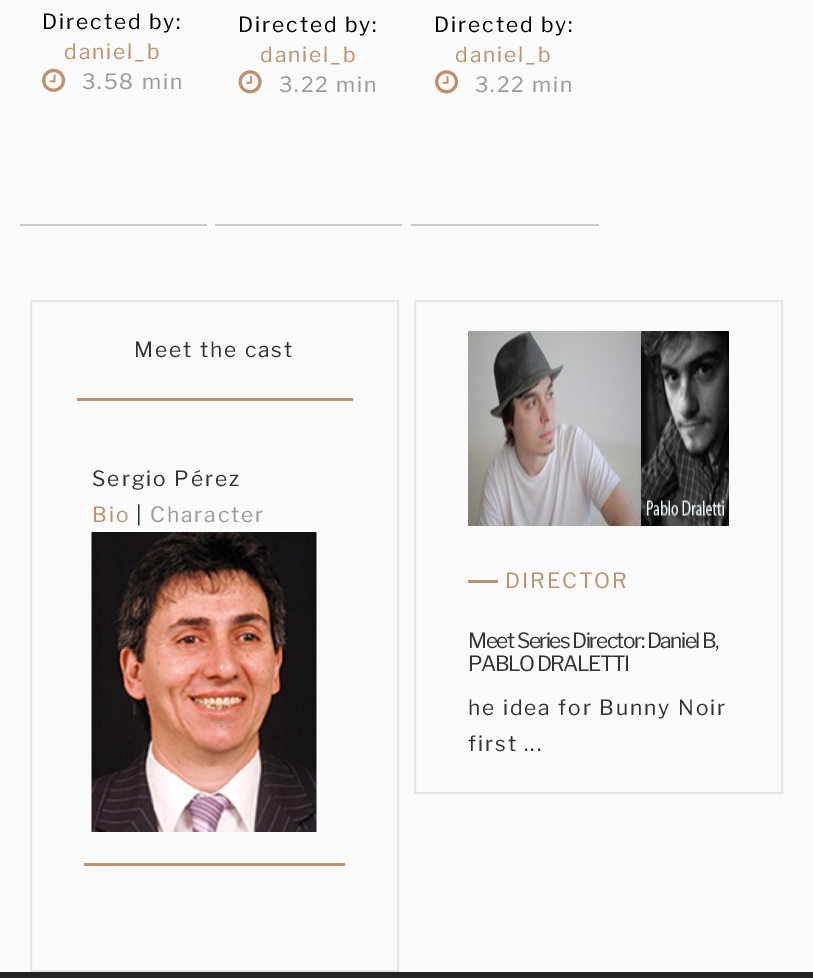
%!PS
<< /PageSize [813 978] >> setpagedevice
/m/moveto load def
/w/setlinewidth load def
/C { dup -16 bitshift 255 div exch dup -8 bitshift 255 and 255 div exch 255 and 255 div setrgbcolor } def
/F { [ exch dup neg 0 0 3 -1 roll 0 0 ] selectfont } def
/R { rectfill } def
/I { 5 dict begin { /h /w /y /x /name } { exch def } forall
  gsave x y translate w h scale
  w h 8 [w 0 0 h 0 0] name (r) file false 3 colorimage grestore end } def
0 978 translate 1 -1 scale
4 setmiterlimit
16#FBFBFB C
0 0 813 978 R
16#CCCCCC C
20 224 187 2 R
/LibreFranklin-Thin 21 F
16#000000 C
42 29 m 1.95 0 (Directed by:) ashow
16#BE926F C
64 59 m 1.95 0 (daniel_b) ashow
(1.rgb) 42 68 24 24 I
16#999999 C
82 89 m 1.95 0 (3.58 min) ashow
16#CCCCCC C
215 224 187 2 R
16#000000 C
238 32 m 1.95 0 (Directed by:) ashow
16#BE926F C
260 62 m 1.95 0 (daniel_b) ashow
(2.rgb) 238 70 24 24 I
16#999999 C
279 92 m 1.95 0 (3.22 min) ashow
16#CCCCCC C
411 224 188 2 R
16#000000 C
434 32 m 1.95 0 (Directed by:) ashow
16#BE926F C
455 62 m 1.95 0 (daniel_b) ashow
(3.rgb) 435 70 24 24 I
16#999999 C
475 92 m 1.95 0 (3.22 min) ashow
16#E6E6E6 C
2 w
31 301 367 670 rectstroke
16#333333 C
134 357 m 1.95 0 (Meet the cast) ashow
16#BD926F C
77 398 276 3 R
16#333333 C
92 486 m 1.95 0 (Sergio Pérez) ashow
16#BE926F C
92 522 m 1.95 0 (Bio) ashow
16#333333 C
136 522 m 1.95 0 (|) ashow
16#999999 C
150 522 m 1.95 0 (Character) ashow
(4.rgb) 91 532 226 300 I
16#BD926F C
84 863 261 3 R
16#E6E6E6 C
415 301 367 492 rectstroke
(5.rgb) 468 331 261 195 I
16#BE926F C
468 580 30 3 R
505 588 m 1.95 0 (DIRECTOR) ashow
16#333333 C
468 648 m -1.5 0 (Meet Series Director: Daniel B,) ashow
468 671 m -1.5 0 (PABLO DRALETTI) ashow
468 715 m 1.95 0 (he idea for Bunny Noir) ashow
468 751 m 1.95 0 (first ...) ashow
16#232323 C
0 972 813 6 R
showpage
